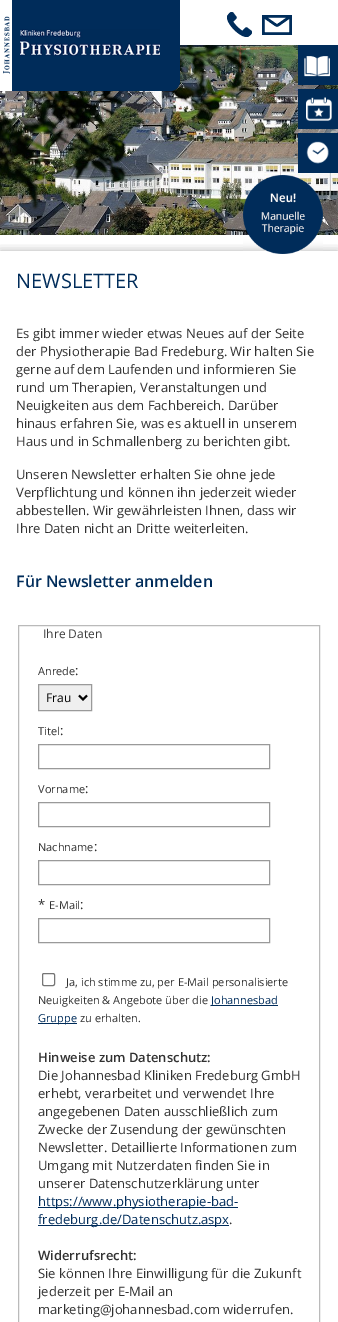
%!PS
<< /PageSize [338 1322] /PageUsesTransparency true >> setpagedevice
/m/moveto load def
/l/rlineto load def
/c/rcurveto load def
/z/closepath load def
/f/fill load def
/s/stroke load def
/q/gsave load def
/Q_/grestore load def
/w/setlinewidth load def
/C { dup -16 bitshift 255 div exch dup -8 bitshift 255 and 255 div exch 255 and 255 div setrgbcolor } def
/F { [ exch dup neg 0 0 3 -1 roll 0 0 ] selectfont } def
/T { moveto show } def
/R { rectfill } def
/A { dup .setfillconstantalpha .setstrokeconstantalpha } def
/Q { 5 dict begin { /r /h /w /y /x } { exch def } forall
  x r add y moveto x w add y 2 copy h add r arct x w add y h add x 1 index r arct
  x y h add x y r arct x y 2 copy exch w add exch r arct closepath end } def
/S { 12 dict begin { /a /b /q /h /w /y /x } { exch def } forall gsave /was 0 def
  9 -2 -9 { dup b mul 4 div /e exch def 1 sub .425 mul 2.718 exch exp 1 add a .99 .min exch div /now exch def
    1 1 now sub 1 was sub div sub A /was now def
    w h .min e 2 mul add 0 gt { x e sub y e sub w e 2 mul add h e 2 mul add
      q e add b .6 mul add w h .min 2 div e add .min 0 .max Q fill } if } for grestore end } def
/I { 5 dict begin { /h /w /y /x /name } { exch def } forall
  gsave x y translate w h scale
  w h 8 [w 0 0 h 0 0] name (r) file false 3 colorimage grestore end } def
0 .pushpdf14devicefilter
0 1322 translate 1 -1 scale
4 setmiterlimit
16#FFFFFF C
0 0 338 1322 R
(8.rgb) 0 45 338 190 I
16#002C5A C
0 0 m 180 0 l 0 81 l 0 5.5 -4.5 10 -10 10 c -170 0 l z f
16#FFFFFF C
0 0 12 91 R
(1.rgb) 3 16 7 58 I
(2.rgb) 20 29 140 27 I
(3.rgb) 227 12 25 25 I
(4.rgb) 262 15 30 20 I
16#002C5A C
298 45 40 40 R
(5.rgb) 304 56 26 21 I
298 89 40 40 R
(6.rgb) 306 97 26 24 I
298 133 40 40 R
(7.rgb) 306 141 23 23 I
q
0 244 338 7 rectclip
16#000000 C
0 251 338 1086 0 5 .3 S
Q_
(9.rgb) 243 175 80 79 I
/OpenSans-Regular 20 F
(NEWSLETTER) 16 288 T
/OpenSans-Regular 13 F
16#313131 C
(Es gibt immer wieder etwas Neues auf der Seite) 16 338 T
(der Physiotherapie Bad Fredeburg. Wir halten Sie) 16 356 T
(gerne auf dem Laufenden und informieren Sie) 16 374 T
(rund um Therapien, Veranstaltungen und) 16 392 T
(Neuigkeiten aus dem Fachbereich. Darüber) 16 410 T
(hinaus erfahren Sie, was es aktuell in unserem) 16 428 T
(Haus und in Schmallenberg zu berichten gibt.) 16 446 T
(Unseren Newsletter erhalten Sie ohne jede) 16 479 T
(Verpflichtung und können ihn jederzeit wieder) 16 497 T
(abbestellen. Wir gewährleisten Ihnen, dass wir) 16 515 T
(Ihre Daten nicht an Dritte weiterleiten.) 16 533 T
/OpenSans-SemiBold 16 F
16#002C5A C
(Für Newsletter anmelden) 16 587 T
16#BABABA C
18.5 625.5 301 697 rectstroke
/OpenSans-Regular 12 F
16#3A3A3A C
(Ihre Daten) 43 638 T
/OpenSans-Regular 11 F
16#313131 C
(Anrede) 38 675 T
/OpenSans-Regular 13 F
(:) 75 675 T
16#EFEFEF C
38.5 684.5 m 53 0 l 0 26 l -53 0 l z q f Q_
16#9A9A9A C
s
16#000000 C
2 w
79 695.5 m 4 4 l 4 -4 l s
/OpenSans-Regular 12 F
(Frau) 46 702 T
/OpenSans-Regular 11 F
16#313131 C
(Titel) 38 735 T
/OpenSans-Regular 13 F
(:) 60 735 T
16#9A9A9A C
1 w
38.5 744.5 231 24 rectstroke
/OpenSans-Regular 11 F
16#313131 C
(Vorname) 38 793 T
/OpenSans-Regular 13 F
(:) 85 793 T
16#9A9A9A C
38.5 802.5 231 24 rectstroke
/OpenSans-Regular 11 F
16#313131 C
(Nachname) 38 851 T
/OpenSans-Regular 13 F
(:) 94 851 T
16#9A9A9A C
38.5 860.5 231 24 rectstroke
16#313131 C
(*) 38 909 T
/OpenSans-Regular 11 F
(E-Mail) 49 909 T
/OpenSans-Regular 13 F
(:) 80 909 T
16#9A9A9A C
38.5 918.5 231 24 rectstroke
16#767676 C
42.5 973.5 12 12 1.5 Q s
/OpenSans-Regular 11 F
16#313131 C
(Ja, ich stimme zu, per E-Mail personalisierte) 66 986 T
(Neuigkeiten & Angebote über die) 38 1004 T
16#002C5A C
211 1005 67 1 R
(Johannesbad) 211 1004 T
38 1023 39 1 R
(Gruppe) 38 1022 T
16#313131 C
(zu erhalten.) 80 1022 T
/OpenSans-SemiBold 13 F
(Hinweise zum Datenschutz:) 38 1062 T
/OpenSans-Regular 13 F
(Die Johannesbad Kliniken Fredeburg GmbH) 38 1080 T
(erhebt, verarbeitet und verwendet Ihre) 38 1098 T
(angegebenen Daten ausschließlich zum) 38 1116 T
(Zwecke der Zusendung der gewünschten) 38 1134 T
(Newsletter. Detaillierte Informationen zum) 38 1152 T
(Umgang mit Nutzerdaten finden Sie in) 38 1170 T
(unserer Datenschutzerklärung unter) 38 1188 T
16#002C5A C
38 1207 200 1 R
(https://www.physiotherapie-bad-) 38 1206 T
38 1225 191 1 R
(fredeburg.de/Datenschutz.aspx) 38 1224 T
16#313131 C
(.) 229 1224 T
/OpenSans-SemiBold 13 F
(Widerrufsrecht:) 38 1260 T
/OpenSans-Regular 13 F
(Sie können Ihre Einwilligung für die Zukunft) 38 1278 T
(jederzeit per E-Mail an) 38 1296 T
(marketing@johannesbad.com widerrufen.) 38 1314 T
.poppdf14devicefilter showpage
